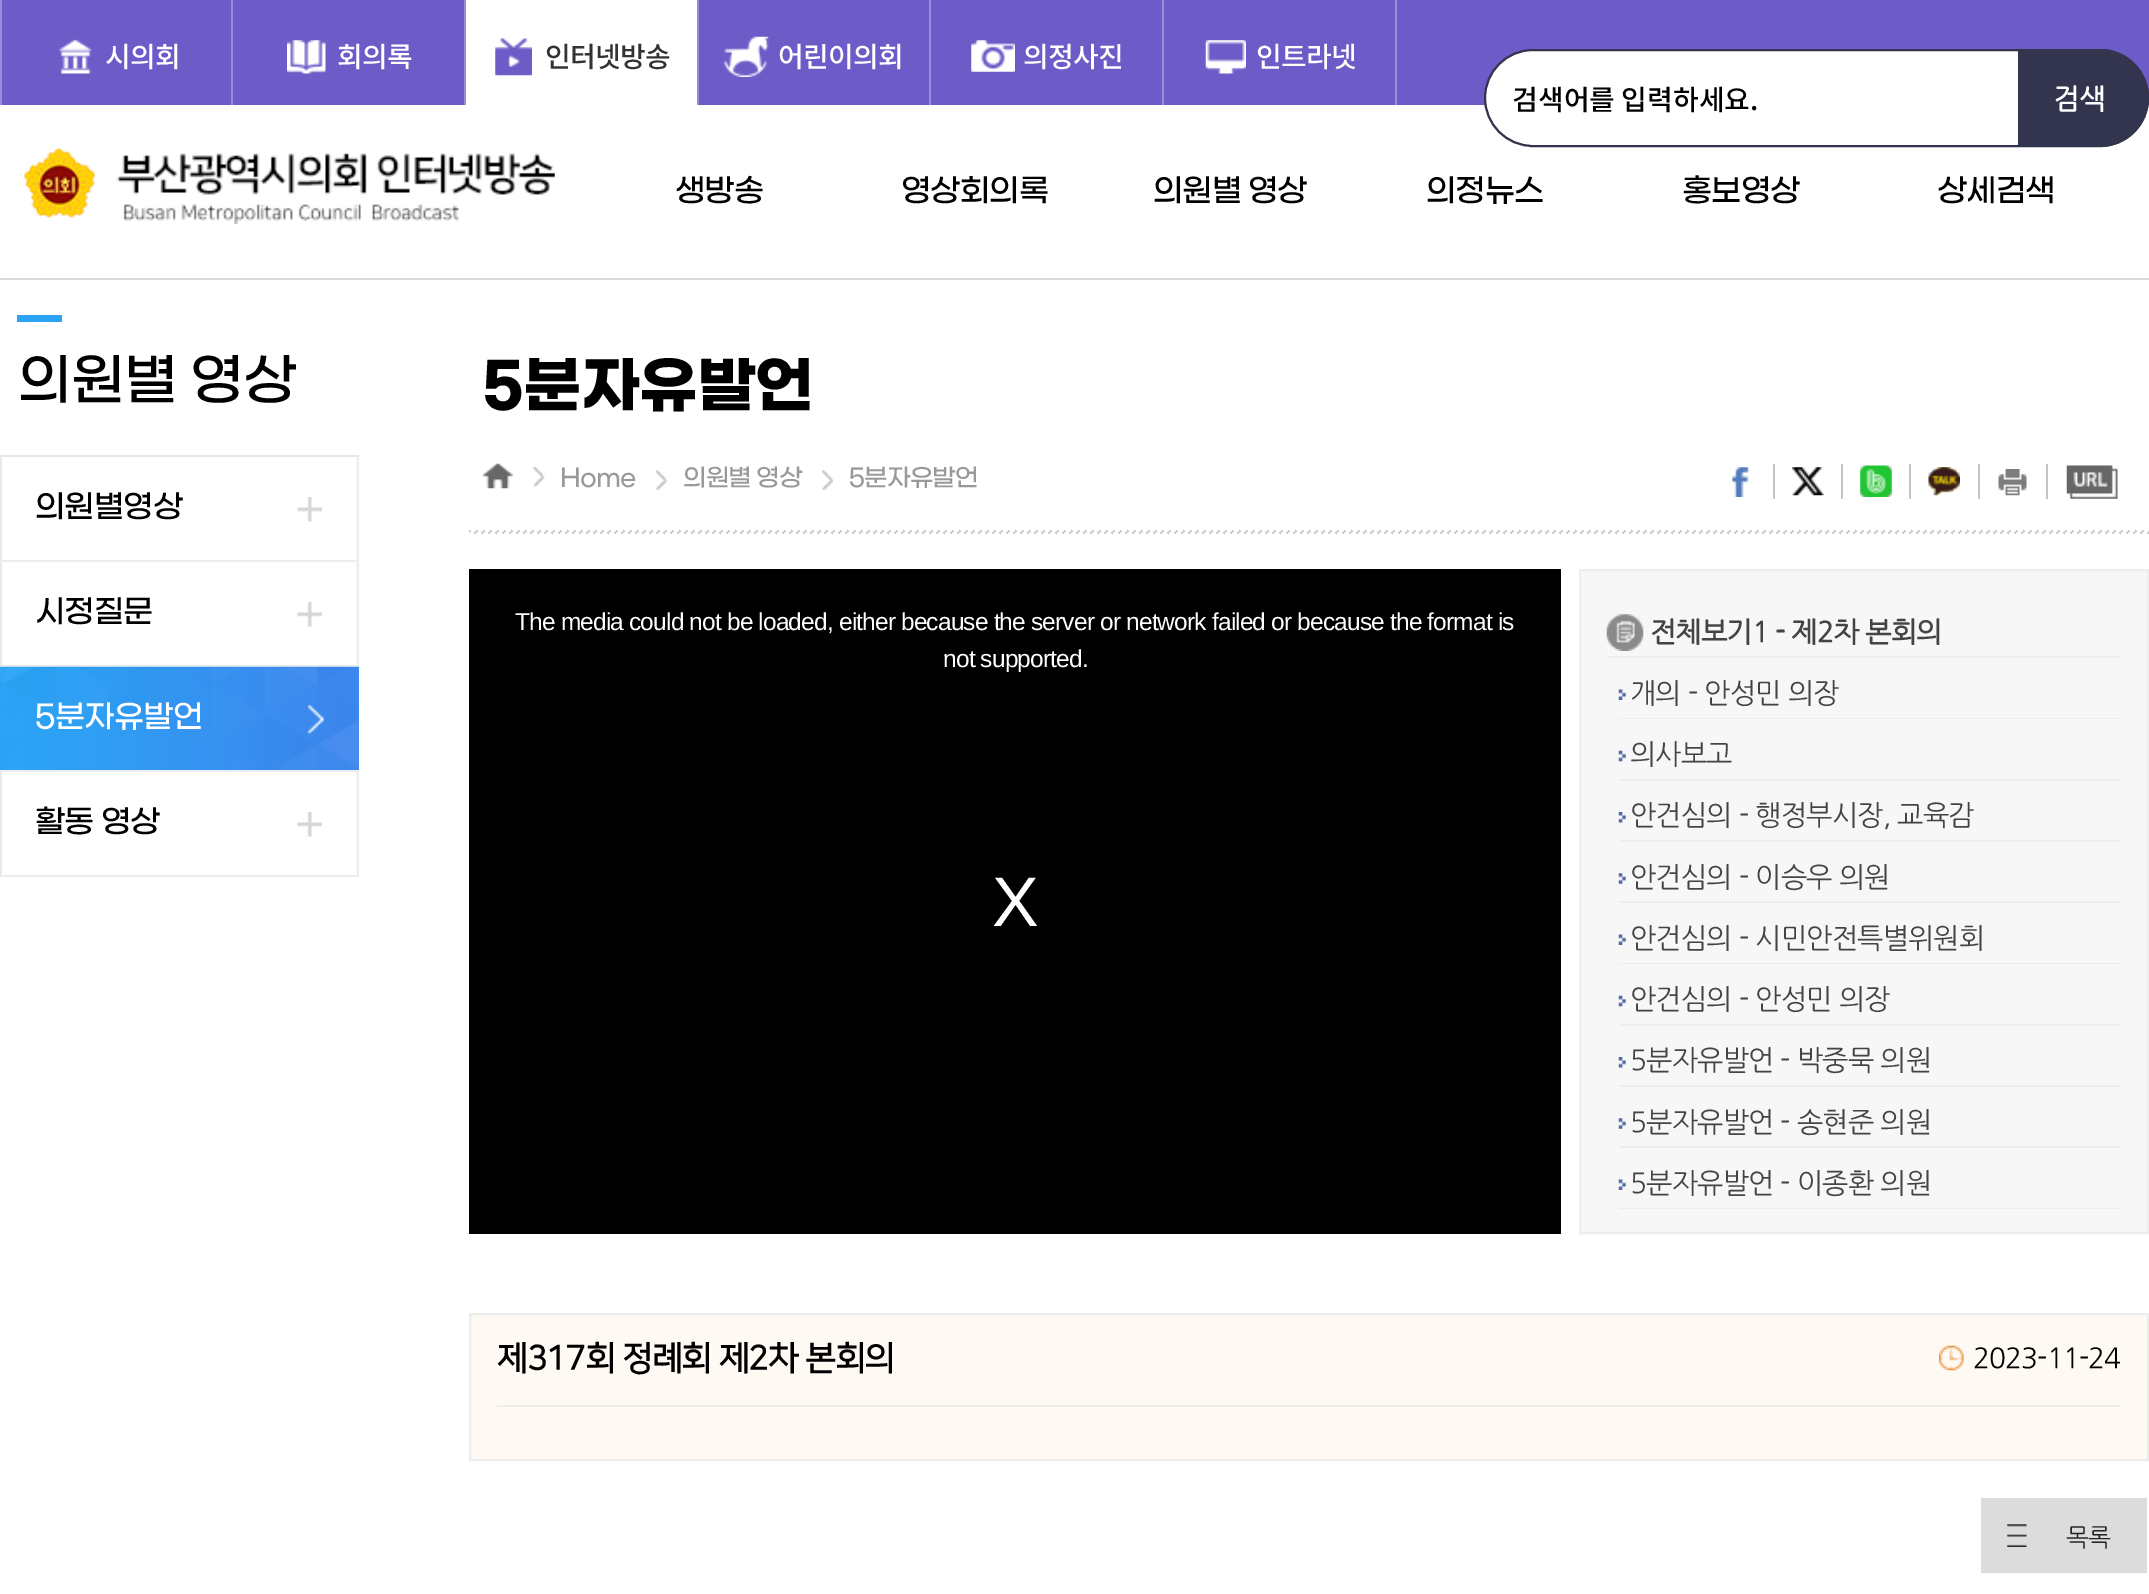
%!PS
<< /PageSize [2149 1594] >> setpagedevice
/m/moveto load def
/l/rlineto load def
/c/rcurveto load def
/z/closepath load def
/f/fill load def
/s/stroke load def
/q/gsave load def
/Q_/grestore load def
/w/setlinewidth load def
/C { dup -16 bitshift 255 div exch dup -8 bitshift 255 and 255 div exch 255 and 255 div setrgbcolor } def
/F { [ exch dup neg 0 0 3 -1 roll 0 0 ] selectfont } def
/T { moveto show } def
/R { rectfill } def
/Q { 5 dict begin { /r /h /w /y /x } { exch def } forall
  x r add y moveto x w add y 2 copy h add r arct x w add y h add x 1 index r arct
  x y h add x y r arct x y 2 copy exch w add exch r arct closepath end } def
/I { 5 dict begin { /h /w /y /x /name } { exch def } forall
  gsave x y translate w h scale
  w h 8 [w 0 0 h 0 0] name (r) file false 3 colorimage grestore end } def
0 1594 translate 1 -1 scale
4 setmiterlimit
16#FFFFFF C
0 0 2149 1594 R
16#DADADA C
0 278 2149 2 R
16#6D5CC7 C
2 0 2147 105 R
16#998DD8 C
231 0 2 105 R
0 0 2 105 R
(1.rgb) 59 39 33 35 I
/NotoSansKR-Medium 28 F
16#FFFFFF C
105 67 m -.85 0 (시의회) ashow
16#998DD8 C
464 0 2 105 R
(2.rgb) 287 40 39 34 I
16#FFFFFF C
337 67 m -.85 0 (회의록) ashow
16#998DD8 C
697 0 2 105 R
16#FFFFFF C
466 0 231 105 R
(3.rgb) 495 38 37 38 I
16#333333 C
545 67 m -.85 0 (인터넷방송) ashow
16#998DD8 C
929 0 2 105 R
(4.rgb) 724 36 45 41 I
16#FFFFFF C
778 67 m -.85 0 (어린이의회) ashow
16#998DD8 C
1162 0 2 105 R
(5.rgb) 971 40 44 32 I
16#FFFFFF C
1023 67 m -.85 0 (의정사진) ashow
16#998DD8 C
1395 0 2 105 R
(6.rgb) 1205 40 41 34 I
16#FFFFFF C
1256 67 m -.85 0 (인트라넷) ashow
1485 50 663 96 48 Q q f Q_
16#33344E C
2 w
s
16#000000 C
(검색어를 입력하세요.) 1512 110 T
16#33344E C
2018 49 m 82 0 l 27 0 49 22 49 49 c 0 27 -22 49 -49 49 c -82 0 l z f
/NanumGothic-Bold 28 F
16#FFFFFF C
(검색) 2053 108 T
(7.rgb) 24 148 531 76 I
/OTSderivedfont-Medium 31.5 F
16#000000 C
675 200 m -.85 0 (생방송) ashow
901 200 m -.85 0 (영상회의록) ashow
1153 200 m -.85 0 (의원별) ashow
1248 200 m -.85 0 (영상) ashow
1426 200 m -.85 0 (의정뉴스) ashow
1682 200 m -.85 0 (홍보영상) ashow
1937 200 m -.85 0 (상세검색) ashow
16#2BA4F5 C
17 315 45 7 R
/OTSderivedfont-Medium 56 F
16#000000 C
18 397 m -.85 0 (의원별) ashow
190 397 m -.85 0 (영상) ashow
(8.rgb) 0 457 359 418 I
16#E6E6E6 C
0 455 359 2 R
(9.rgb) 297 497 25 25 I
16#EDEDED C
0 560 359 2 R
/OTSderivedfont-Medium 31.5 F
16#000000 C
35 516 m -.85 0 (의원별영상) ashow
(9.rgb) 297 602 25 25 I
16#EDEDED C
0 665 359 2 R
16#000000 C
35 621 m -.85 0 (시정질문) ashow
(10.rgb) 0 666 359 104 I
(11.rgb) 308 705 16 29 I
16#EDEDED C
0 770 359 2 R
16#FFFFFF C
35 726 m -.85 0 (5분자유발언) ashow
(9.rgb) 297 812 25 25 I
16#EDEDED C
0 875 359 2 R
16#000000 C
35 831 m -.85 0 (활동) ashow
101 831 m -.85 0 (영상) ashow
(12.rgb) 469 530 1680 4 I
/OTSderivedfont-Bold 61.25 F
483 404 m -.85 0 (5분자유발언) ashow
(13.rgb) 532 465 13 22 I
(14.rgb) 483 463 30 26 I
(15.rgb) 654 469 13 21 I
/OTSderivedfont-Medium 24.5 F
16#999999 C
560 485 m -.85 0 (Home) ashow
(16.rgb) 821 469 12 21 I
683 485 m -.85 0 (의원별) ashow
756 485 m -.85 0 (영상) ashow
849 485 m -.85 0 (5분자유발언) ashow
16#C4C4C4 C
1773 464 2 35 R
(17.rgb) 1732 467 17 30 I
1841 464 2 35 R
(18.rgb) 1792 467 32 29 I
1909 464 2 35 R
(19.rgb) 1860 465 32 32 I
1978 464 2 35 R
(20.rgb) 1928 467 32 29 I
2046 464 2 35 R
(21.rgb) 1998 469 29 27 I
(22.rgb) 2066 465 52 34 I
16#000000 C
469 569 1092 665 R
/LiberationSans-Regular 24.5 F
16#FFFFFF C
515 630 m -.85 0 (The media could not be loaded, either because the server or network failed or because the format is) ashow
943 667 m -.85 0 (not supported.) ashow
/LiberationSans-Regular 70 F
992 926 m -.85 0 (X) ashow
16#F7F7F7 C
1580 570 m 568 0 l 0 663 l -568 0 l z q f Q_
16#EDEDED C
s
(23.rgb) 1606 614 38 37 I
1607 656 514 2 R
/NanumGothic-Bold 28 F
16#444444 C
1650 641 m -.85 0 (전체보기1 - 제2차 본회의) ashow
(24.rgb) 1618 689 8 11 I
16#EDEDED C
1619 718 502 1 R
/NanumGothic-Regular 28 F
16#444444 C
1630 702 m -.85 0 (개의 - 안성민 의장) ashow
(25.rgb) 1618 750 8 12 I
16#EDEDED C
1619 779 502 2 R
16#444444 C
1630 763 m -.85 0 (의사보고) ashow
(26.rgb) 1618 812 8 11 I
16#EDEDED C
1619 840 502 2 R
16#444444 C
1630 824 m -.85 0 (안건심의 - 행정부시장, 교육감) ashow
(27.rgb) 1618 873 8 11 I
16#EDEDED C
1619 901 502 2 R
16#444444 C
1630 886 m -.85 0 (안건심의 - 이승우 의원) ashow
(24.rgb) 1618 934 8 11 I
16#EDEDED C
1619 963 502 1 R
16#444444 C
1630 947 m -.85 0 (안건심의 - 시민안전특별위원회) ashow
(25.rgb) 1618 995 8 12 I
16#EDEDED C
1619 1024 502 2 R
16#444444 C
1630 1008 m -.85 0 (안건심의 - 안성민 의장) ashow
(26.rgb) 1618 1057 8 11 I
16#EDEDED C
1619 1085 502 2 R
16#444444 C
1630 1069 m -.85 0 (5분자유발언 - 박중묵 의원) ashow
(27.rgb) 1618 1118 8 11 I
16#EDEDED C
1619 1146 502 2 R
16#444444 C
1630 1131 m -.85 0 (5분자유발언 - 송현준 의원) ashow
(24.rgb) 1618 1179 8 11 I
16#EDEDED C
1619 1208 502 1 R
16#444444 C
1630 1192 m -.85 0 (5분자유발언 - 이종환 의원) ashow
16#FFF9F3 C
470 1314 m 1678 0 l 0 146 l -1678 0 l z q f Q_
16#EDEDED C
s
497 1405 1624 2 R
/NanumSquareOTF-Bold 33.6 F
16#000000 C
497 1369 m -.85 0 (제317회 정례회 제2차 본회의) ashow
(28.rgb) 1939 1345 25 26 I
/NanumGothic-Regular 28 F
1973 1367 m -.85 0 (2023-11-24) ashow
16#DCDCDC C
1981 1498 166 75 R
(29.rgb) 2007 1524 20 23 I
/NanumGothic-Regular 24.5 F
16#222222 C
2066 1545 m -.85 0 (목록) ashow
showpage
